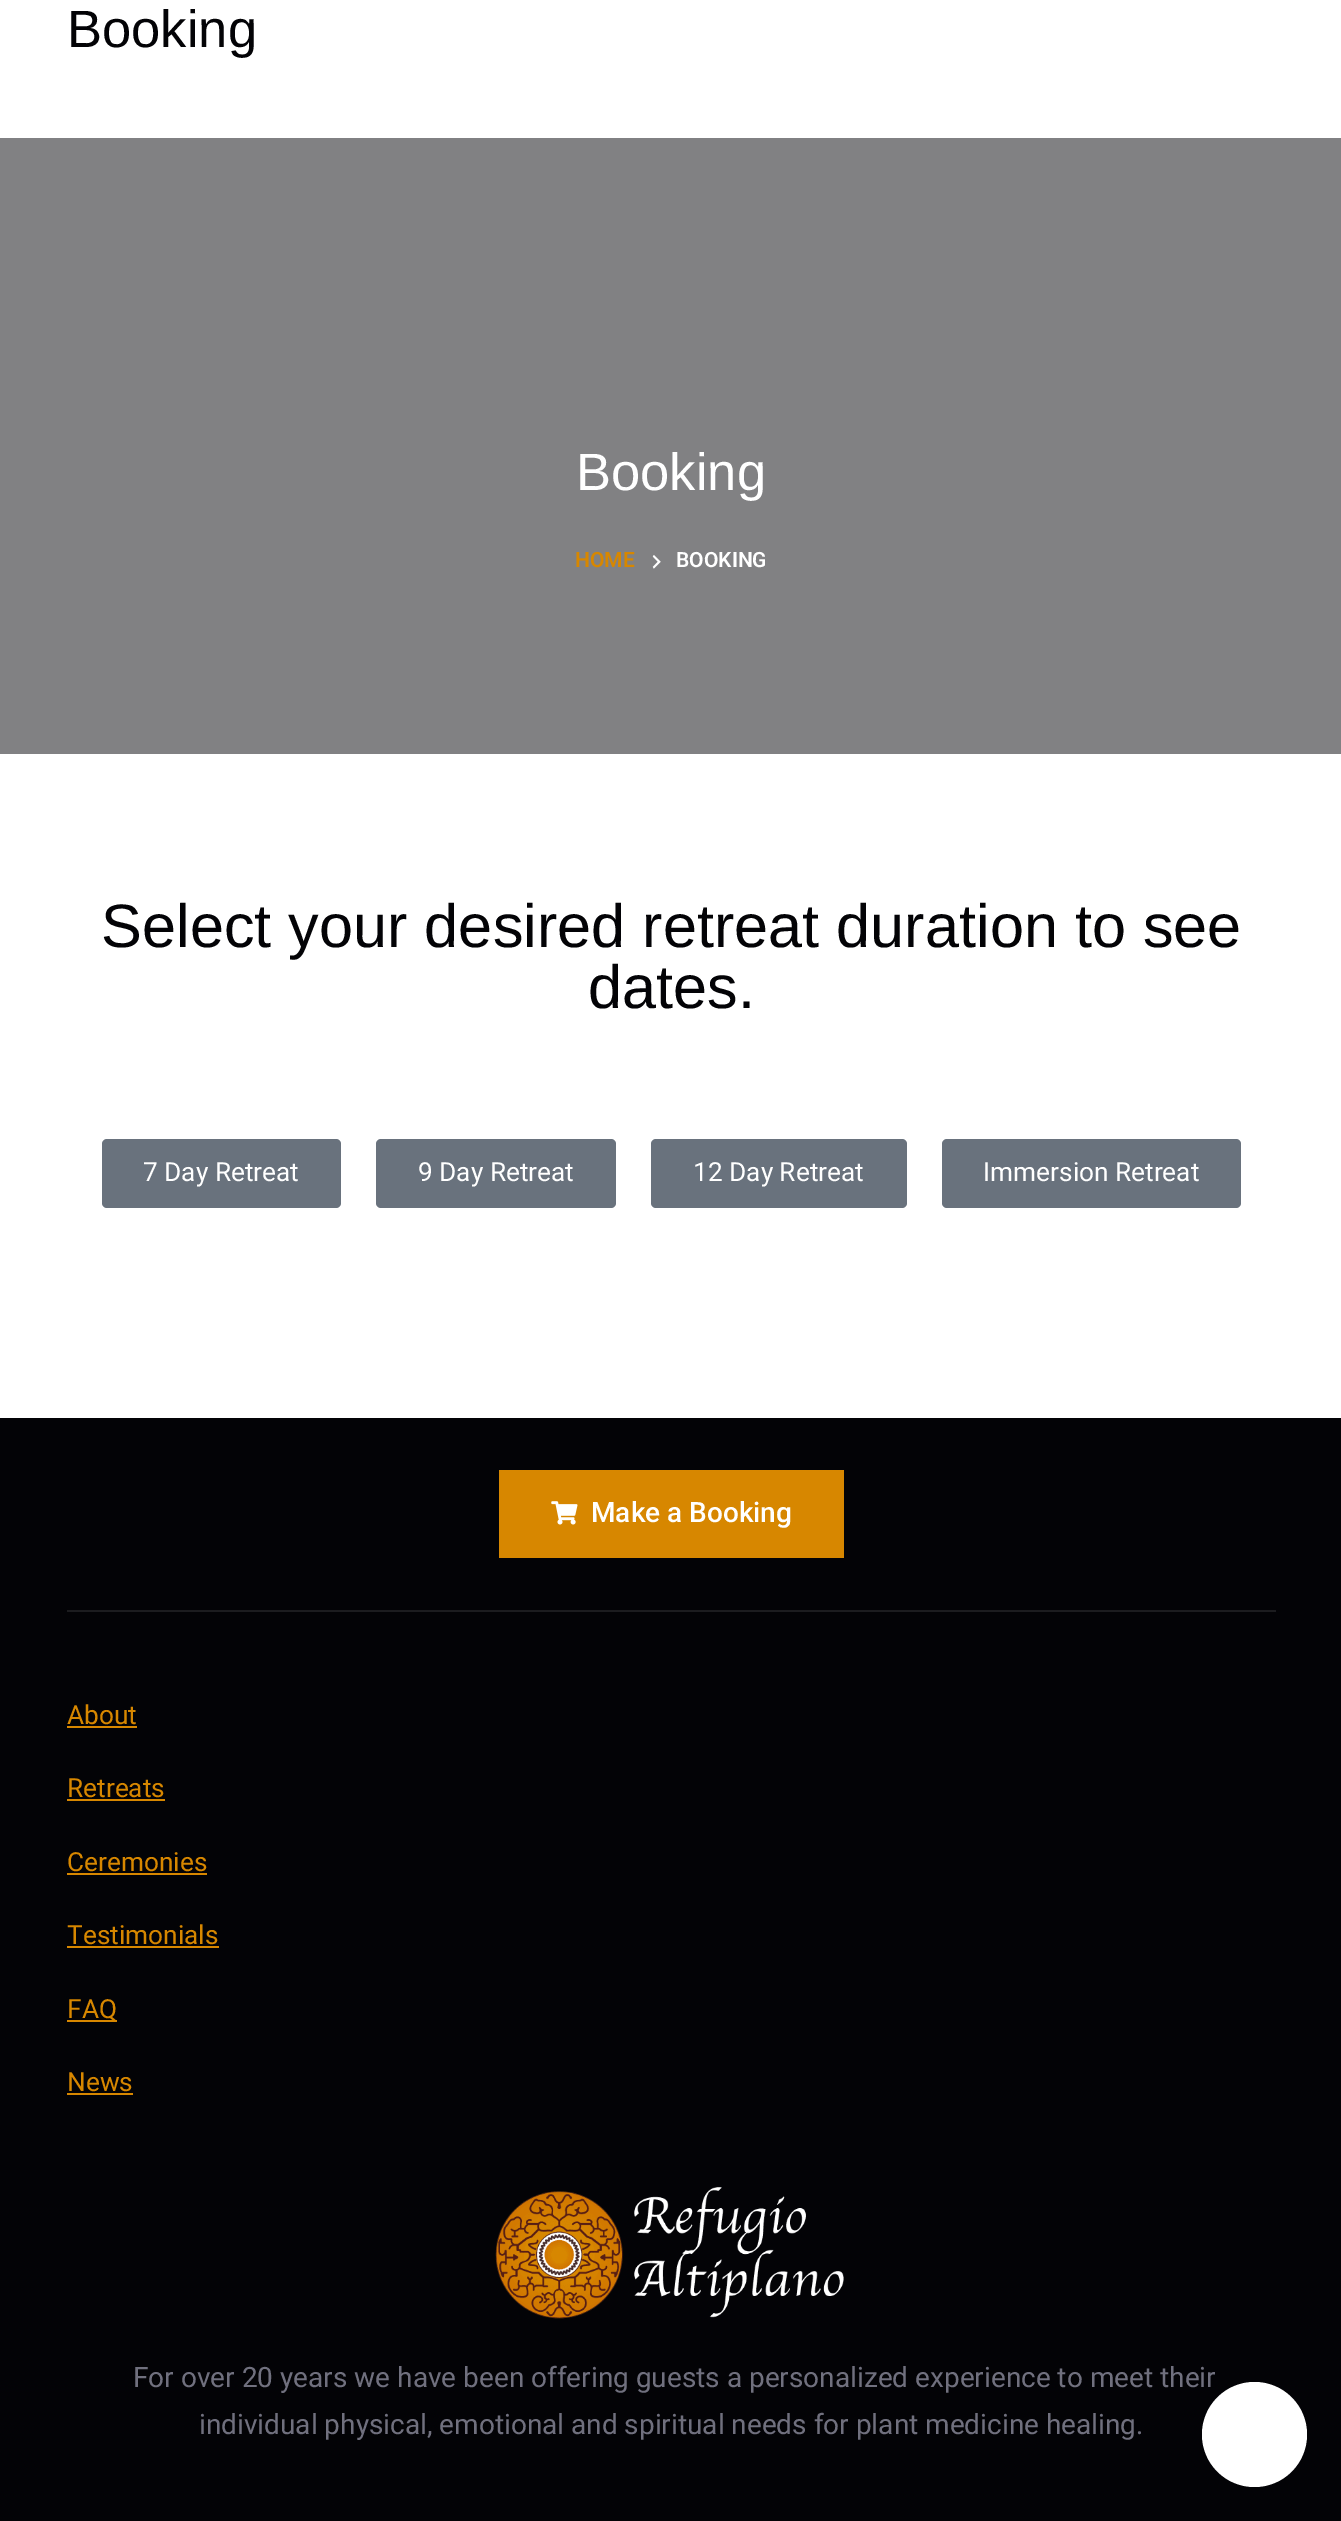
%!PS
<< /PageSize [1341 2521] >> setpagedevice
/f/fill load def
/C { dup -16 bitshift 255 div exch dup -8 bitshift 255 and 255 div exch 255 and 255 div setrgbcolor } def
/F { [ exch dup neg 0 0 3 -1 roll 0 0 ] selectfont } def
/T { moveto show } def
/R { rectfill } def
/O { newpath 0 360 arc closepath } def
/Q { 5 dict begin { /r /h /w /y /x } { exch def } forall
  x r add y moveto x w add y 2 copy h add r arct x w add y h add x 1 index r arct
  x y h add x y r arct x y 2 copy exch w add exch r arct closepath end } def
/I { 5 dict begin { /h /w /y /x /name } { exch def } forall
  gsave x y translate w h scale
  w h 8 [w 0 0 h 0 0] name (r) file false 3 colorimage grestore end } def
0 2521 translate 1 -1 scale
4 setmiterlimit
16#FFFFFF C
0 0 1341 2521 R
/LiberationSans-Regular 52.5 F
16#030306 C
(Booking) 67 47 T
16#818183 C
0 138 1341 616 R
16#FFFFFF C
(Booking) 576 490 T
/Roboto-SemiBold 21 F
16#D78700 C
(HOME) 575 567 T
(1.rgb) 652 555 9 14 I
16#FFFFFF C
(BOOKING) 676 567 T
/LiberationSans-Regular 61.25 F
16#030306 C
(Select your desired retreat duration to see) 101 947 T
(dates.) 588 1008 T
16#69727D C
102 1139 239 69 5 Q f
/Roboto-Regular 26.25 F
16#FFFFFF C
(7 Day Retreat) 143 1181 T
16#69727D C
376 1139 240 69 5 Q f
16#FFFFFF C
(9 Day Retreat) 418 1181 T
16#69727D C
651 1139 256 69 5 Q f
16#FFFFFF C
(12 Day Retreat) 693 1181 T
16#69727D C
942 1139 299 69 5 Q f
16#FFFFFF C
(Immersion Retreat) 983 1181 T
16#030306 C
0 1418 1341 1103 R
16#D78700 C
499 1470 345 88 R
(2.rgb) 551 1501 27 24 I
/Roboto-Medium 28 F
16#FFFFFF C
(Make a Booking) 591 1522 T
16#1C1C1F C
67 1610 1209 2 R
/Roboto-Regular 26.25 F
16#D78700 C
(About) 67 1724 T
67 1726 70 2 R
(Retreats) 67 1797 T
67 1799 98 2 R
(Ceremonies) 67 1871 T
67 1873 140 2 R
(Testimonials) 67 1944 T
67 1946 152 2 R
67 2020 50 2 R
(FAQ) 67 2018 T
(News) 67 2091 T
67 2093 66 2 R
(3.rgb) 495 2187 349 132 I
/Roboto-Regular 28 F
16#70707E C
(For over 20 years we have been offering guests a personalized experience to meet their) 133 2387 T
(individual physical, emotional and spiritual needs for plant medicine healing.) 199 2434 T
16#FFFFFF C
1254.5 2434.5 52.5 O f
showpage
